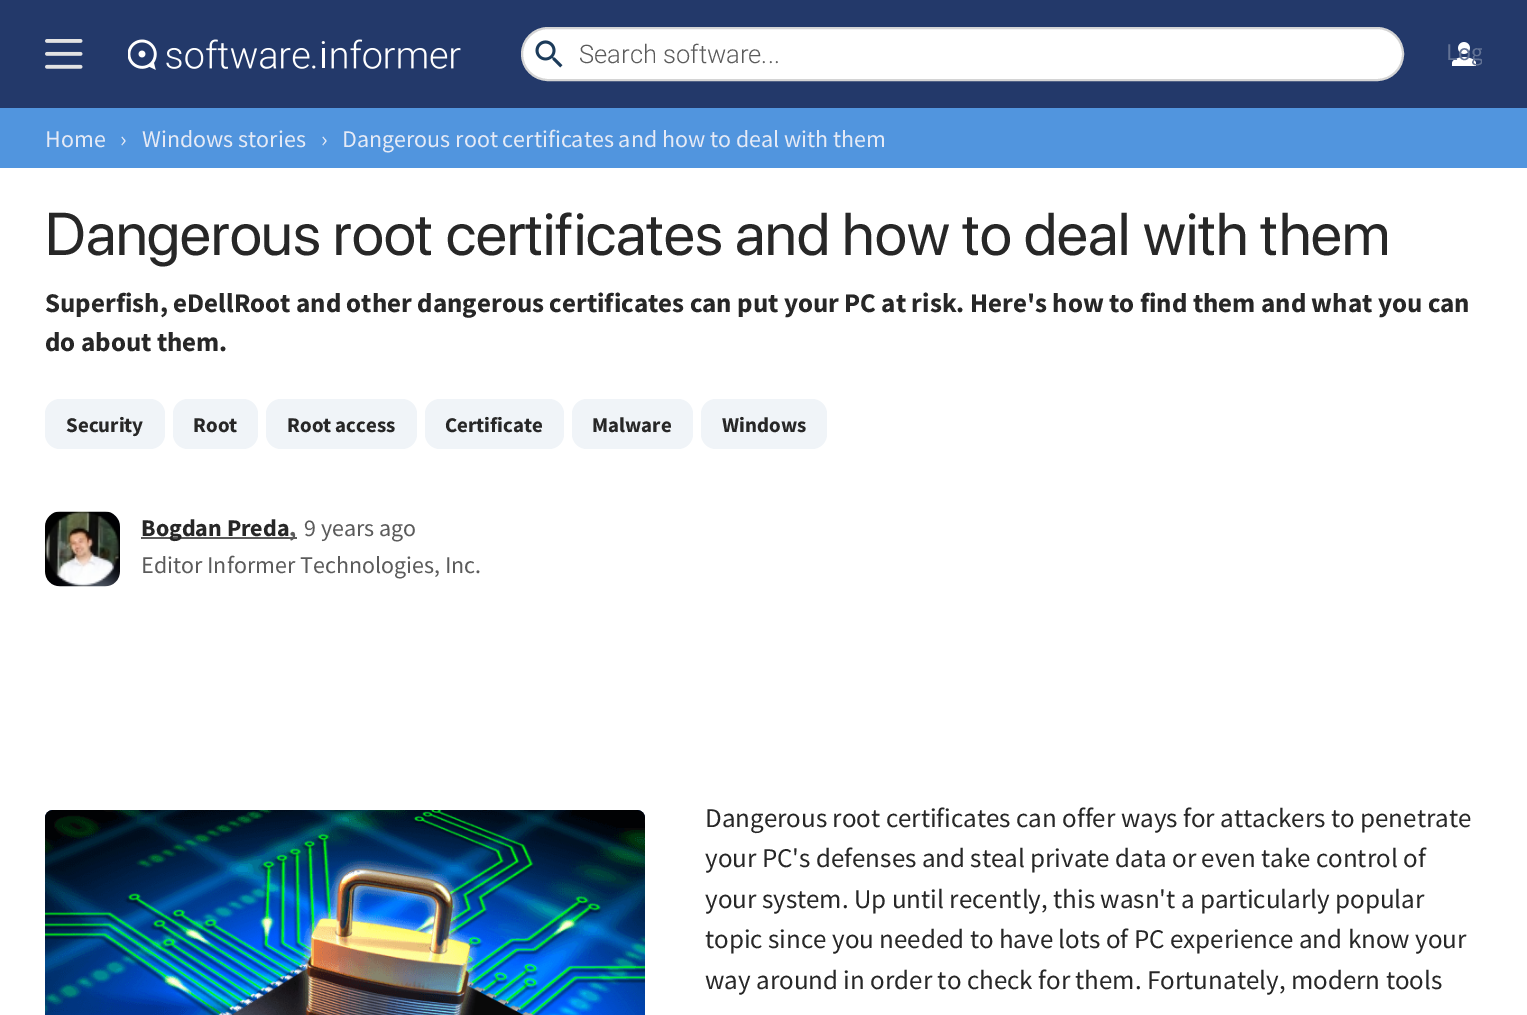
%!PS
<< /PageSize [1527 1015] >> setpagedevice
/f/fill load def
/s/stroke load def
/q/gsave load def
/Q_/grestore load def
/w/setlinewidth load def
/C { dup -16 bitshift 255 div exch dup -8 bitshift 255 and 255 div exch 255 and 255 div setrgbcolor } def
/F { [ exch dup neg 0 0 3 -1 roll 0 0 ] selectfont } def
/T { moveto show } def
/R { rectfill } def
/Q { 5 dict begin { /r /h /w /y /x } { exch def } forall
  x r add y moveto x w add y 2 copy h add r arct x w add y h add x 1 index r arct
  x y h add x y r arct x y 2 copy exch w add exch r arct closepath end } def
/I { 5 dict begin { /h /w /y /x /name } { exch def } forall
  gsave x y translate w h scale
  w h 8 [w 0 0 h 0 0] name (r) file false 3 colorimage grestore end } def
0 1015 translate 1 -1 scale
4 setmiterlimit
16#FFFFFF C
0 0 1527 1015 R
16#23396A C
0 0 1527 108 R
(1.rgb) 45 39 38 30 I
(2.rgb) 128 39 333 31 I
16#FFFFFF C
522 28 881 52 26 Q q f Q_
16#D4D4D4 C
2 w
s
(3.rgb) 535 40 28 28 I
/Roboto-Light 25.5 F
16#5B5B5B C
(Search software...) 579 63 T
(4.rgb) 1452 42 24 24 I
q
1446 36 36 36 rectclip
/SourceSansPro-Regular 24 F
16#637395 C
(Log) 1446 60 T
Q_
16#5195DE C
0 108 1527 60 R
/SourceSansPro-Regular 24 F
16#E5EAF6 C
(Home) 45 147 T
(›) 120 147 T
(Windows stories) 142 147 T
(›) 321 147 T
(Dangerous root certificates and how to deal with them) 342 147 T
/SFProDisplay-Regular 60 F
16#272727 C
(Dangerous root certificates and how to deal with them) 45 255 T
/SourceSansPro-Bold 27 F
(Superfish, eDellRoot and other dangerous certificates can put your PC at risk. Here's how to find them and what you can) 45 312 T
(do about them.) 45 351 T
16#F0F4F8 C
45 399 120 50 15 Q f
/SourceSansPro-Bold 21 F
16#272727 C
(Security) 66 432 T
16#F0F4F8 C
173 399 85 50 15 Q f
16#272727 C
(Root) 193 432 T
16#F0F4F8 C
266 399 151 50 15 Q f
16#272727 C
(Root access) 287 432 T
16#F0F4F8 C
425 399 139 50 15 Q f
16#272727 C
(Certificate) 445 432 T
16#F0F4F8 C
572 399 121 50 15 Q f
16#272727 C
(Malware) 592 432 T
16#F0F4F8 C
701 399 126 50 15 Q f
16#272727 C
(Windows) 722 432 T
(5.rgb) 45 511 75 76 I
16#5B5B5B C
141 537 156 2 R
/SourceSansPro-Bold 24 F
16#272727 C
(Bogdan Preda) 141 536 T
16#5B5B5B C
(,) 289 536 T
/SourceSansPro-Regular 24 F
(9 years ago) 304 536 T
(Editor Informer Technologies, Inc.) 141 573 T
16#003399 C
45 810 600 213 8 Q f
(6.rgb) 45 810 600 205 I
/SourceSansPro-Regular 27 F
16#272727 C
(Dangerous root certificates can offer ways for attackers to penetrate) 705 827 T
(your PC's defenses and steal private data or even take control of) 705 867 T
(your system. Up until recently, this wasn't a particularly popular) 705 908 T
(topic since you needed to have lots of PC experience and know your) 705 948 T
(way around in order to check for them. Fortunately, modern tools) 705 989 T
showpage
